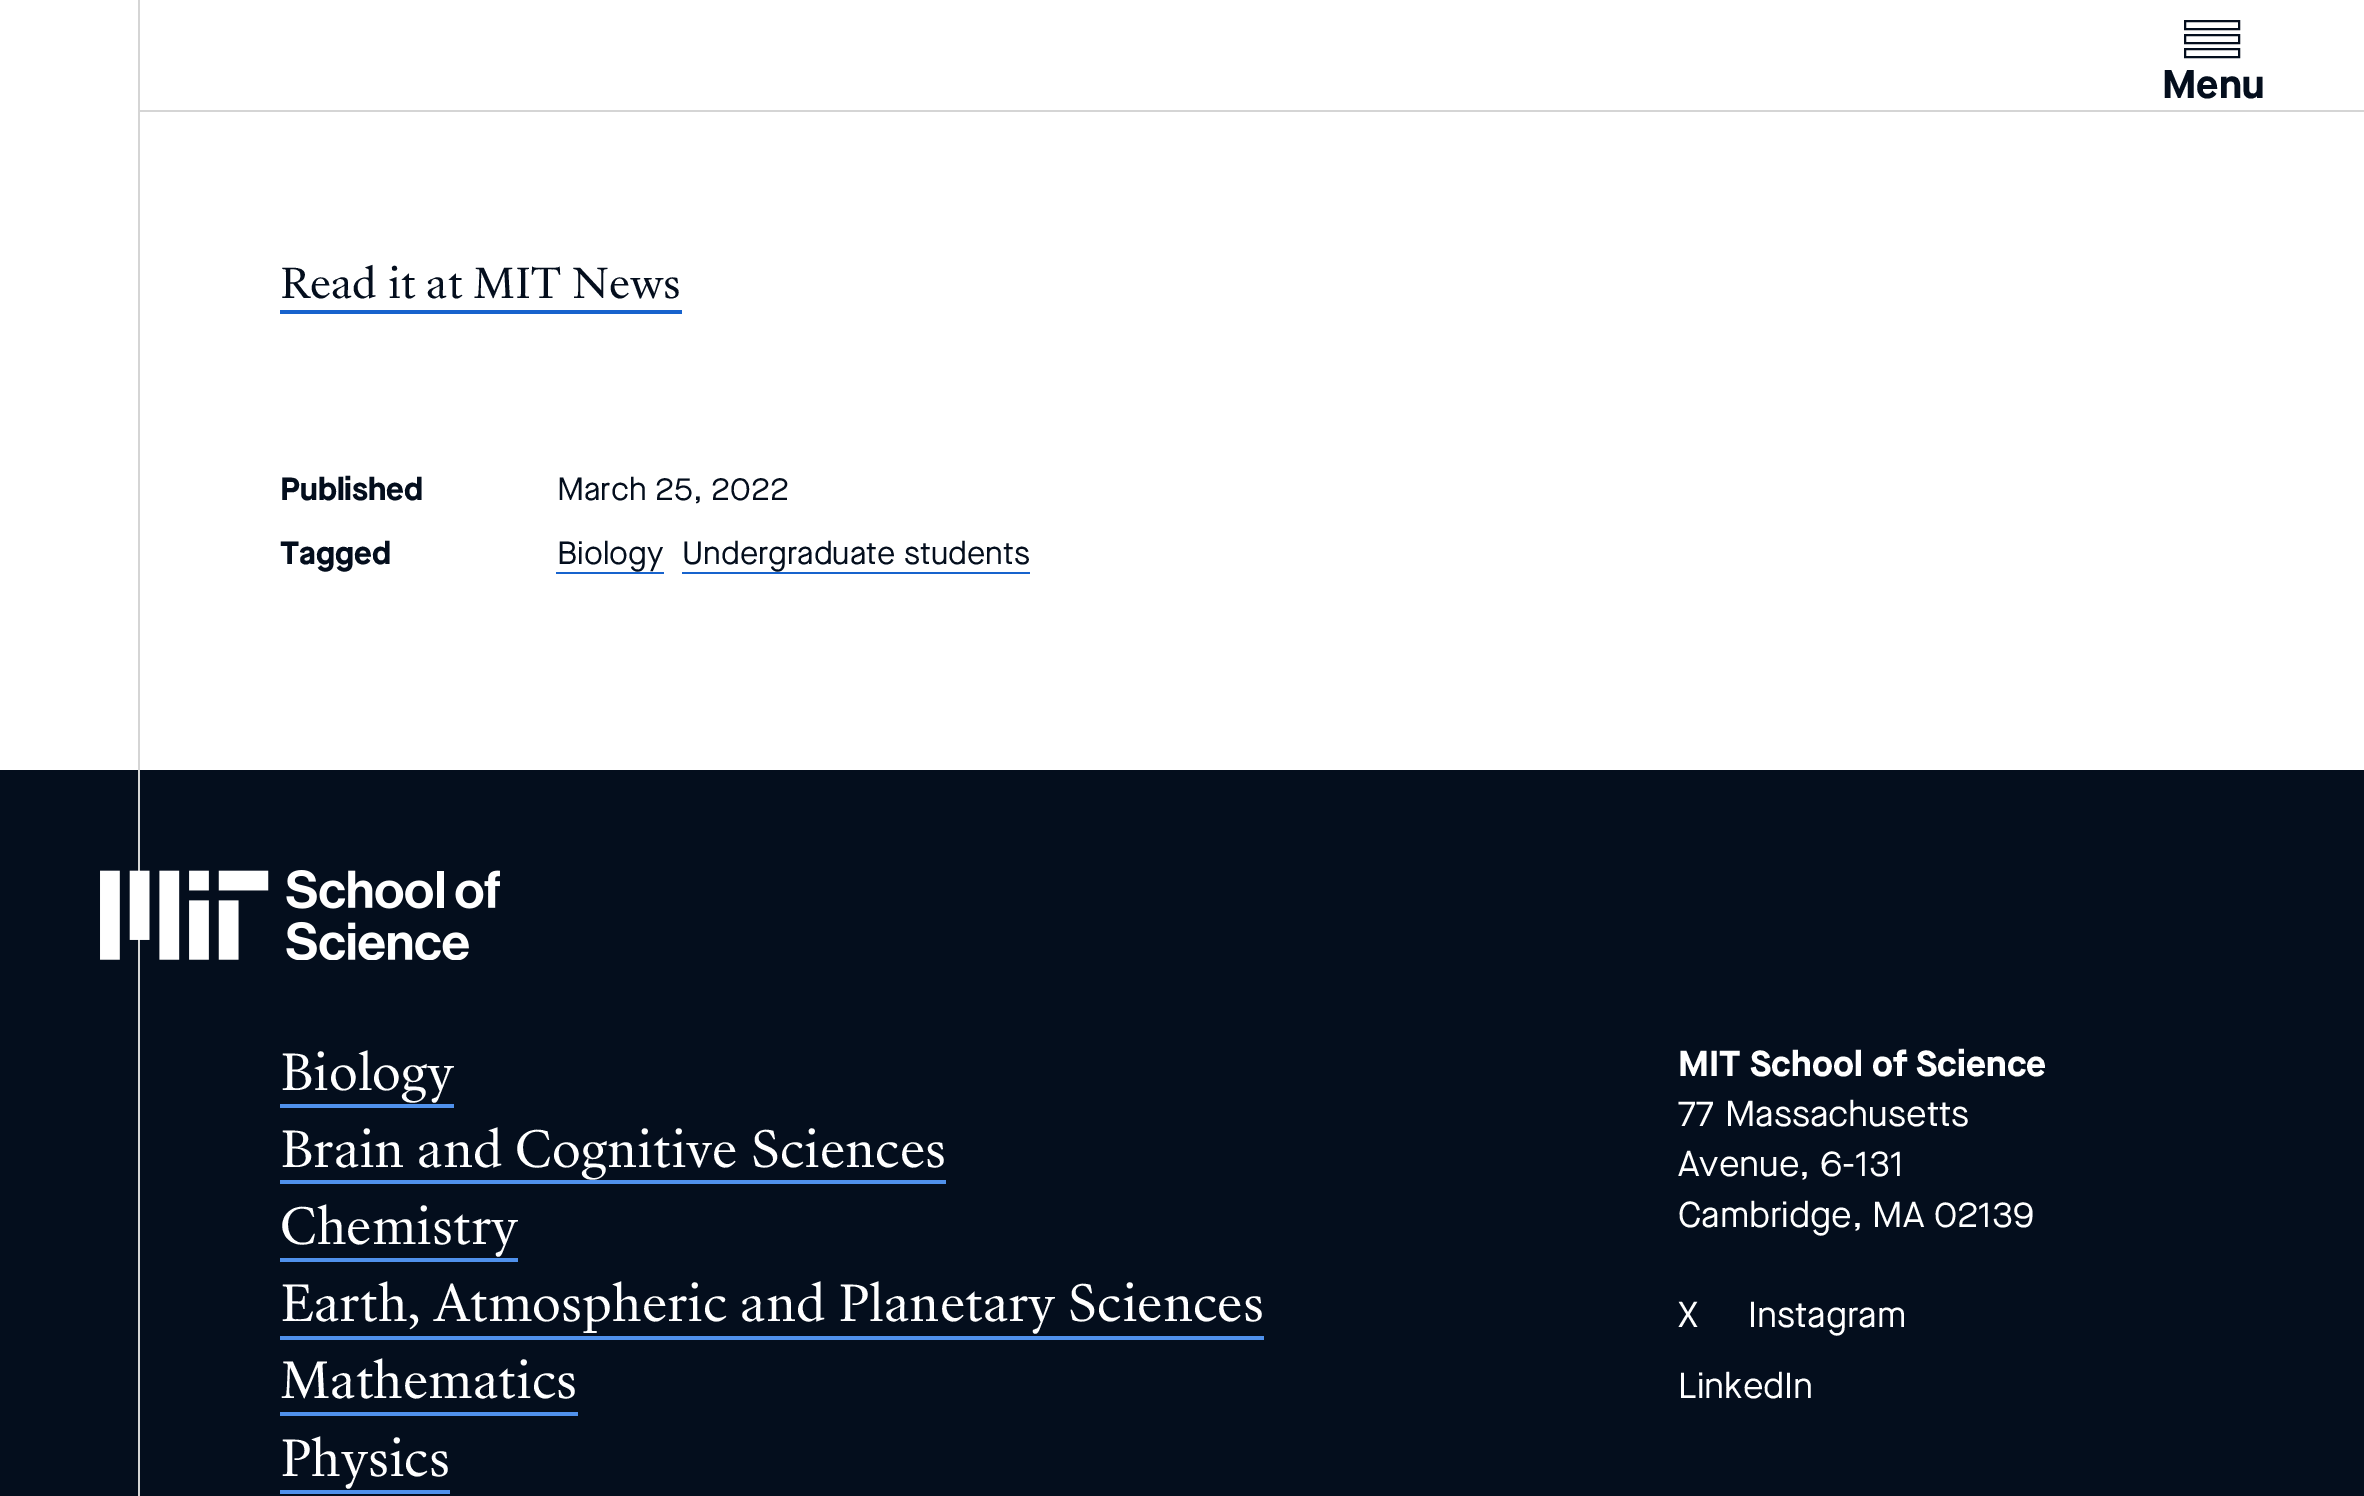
%!PS
<< /PageSize [2364 1496] >> setpagedevice
/m/moveto load def
/w/setlinewidth load def
/C { dup -16 bitshift 255 div exch dup -8 bitshift 255 and 255 div exch 255 and 255 div setrgbcolor } def
/F { [ exch dup neg 0 0 3 -1 roll 0 0 ] selectfont } def
/T { moveto show } def
/R { rectfill } def
/I { 5 dict begin { /h /w /y /x /name } { exch def } forall
  gsave x y translate w h scale
  w h 8 [w 0 0 h 0 0] name (r) file false 3 colorimage grestore end } def
0 1496 translate 1 -1 scale
4 setmiterlimit
16#FFFFFF C
0 0 2364 1496 R
16#040E1D C
0 770 2364 726 R
16#D5D5D5 C
138 0 2 1496 R
16#040E1D C
2 w
2185 35 54 8 rectstroke
2185 49 54 8 rectstroke
2185 21 54 8 rectstroke
/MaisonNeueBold-Bold 40 F
(Menu) 2162 98 T
16#D5D5D5 C
140 110 2224 2 R
/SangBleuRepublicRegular-Regular 40 F
16#040E1D C
(Read it at MIT News) 280 298 T
16#1763CD C
280 310 402 4 R
/MaisonNeueBold-Bold 32 F
16#040E1D C
(Published) 280 500 T
/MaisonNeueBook-Regular 32 F
(March 25, 2022) 557 500 T
/MaisonNeueBold-Bold 32 F
(Tagged) 280 564 T
/MaisonNeueBook-Regular 32 F
(Biology) 557 564 T
16#1763CD C
556 572 108 2 R
16#040E1D C
(Undergraduate students) 682 564 T
16#1763CD C
682 572 348 2 R
(1.rgb) 100 870 400 90 I
/SangBleuRepublicRegular-Regular 48 F
16#FFFFFF C
(Biology) 280 1090 T
16#5091EC C
280 1104 174 4 R
16#FFFFFF C
(Brain and Cognitive Sciences) 280 1167 T
16#5091EC C
280 1180 666 4 R
16#FFFFFF C
(Chemistry) 280 1244 T
16#5091EC C
280 1258 238 4 R
16#FFFFFF C
(Earth, Atmospheric and Planetary Sciences) 280 1321 T
16#5091EC C
280 1336 984 4 R
16#FFFFFF C
(Mathematics) 280 1398 T
16#5091EC C
280 1412 298 4 R
16#FFFFFF C
(Physics) 280 1476 T
16#5091EC C
280 1490 170 4 R
/MaisonNeueBold-Bold 36 F
16#FFFFFF C
(MIT School of Science) 1678 1076 T
/MaisonNeueBook-Regular 36 F
1678 1126 m 1 0 32 (77 Massachusetts) widthshow
(Avenue, 6-131) 1678 1176 T
(Cambridge, MA 02139) 1678 1227 T
(X) 1678 1327 T
(Instagram) 1748 1327 T
(LinkedIn) 1678 1398 T
showpage
